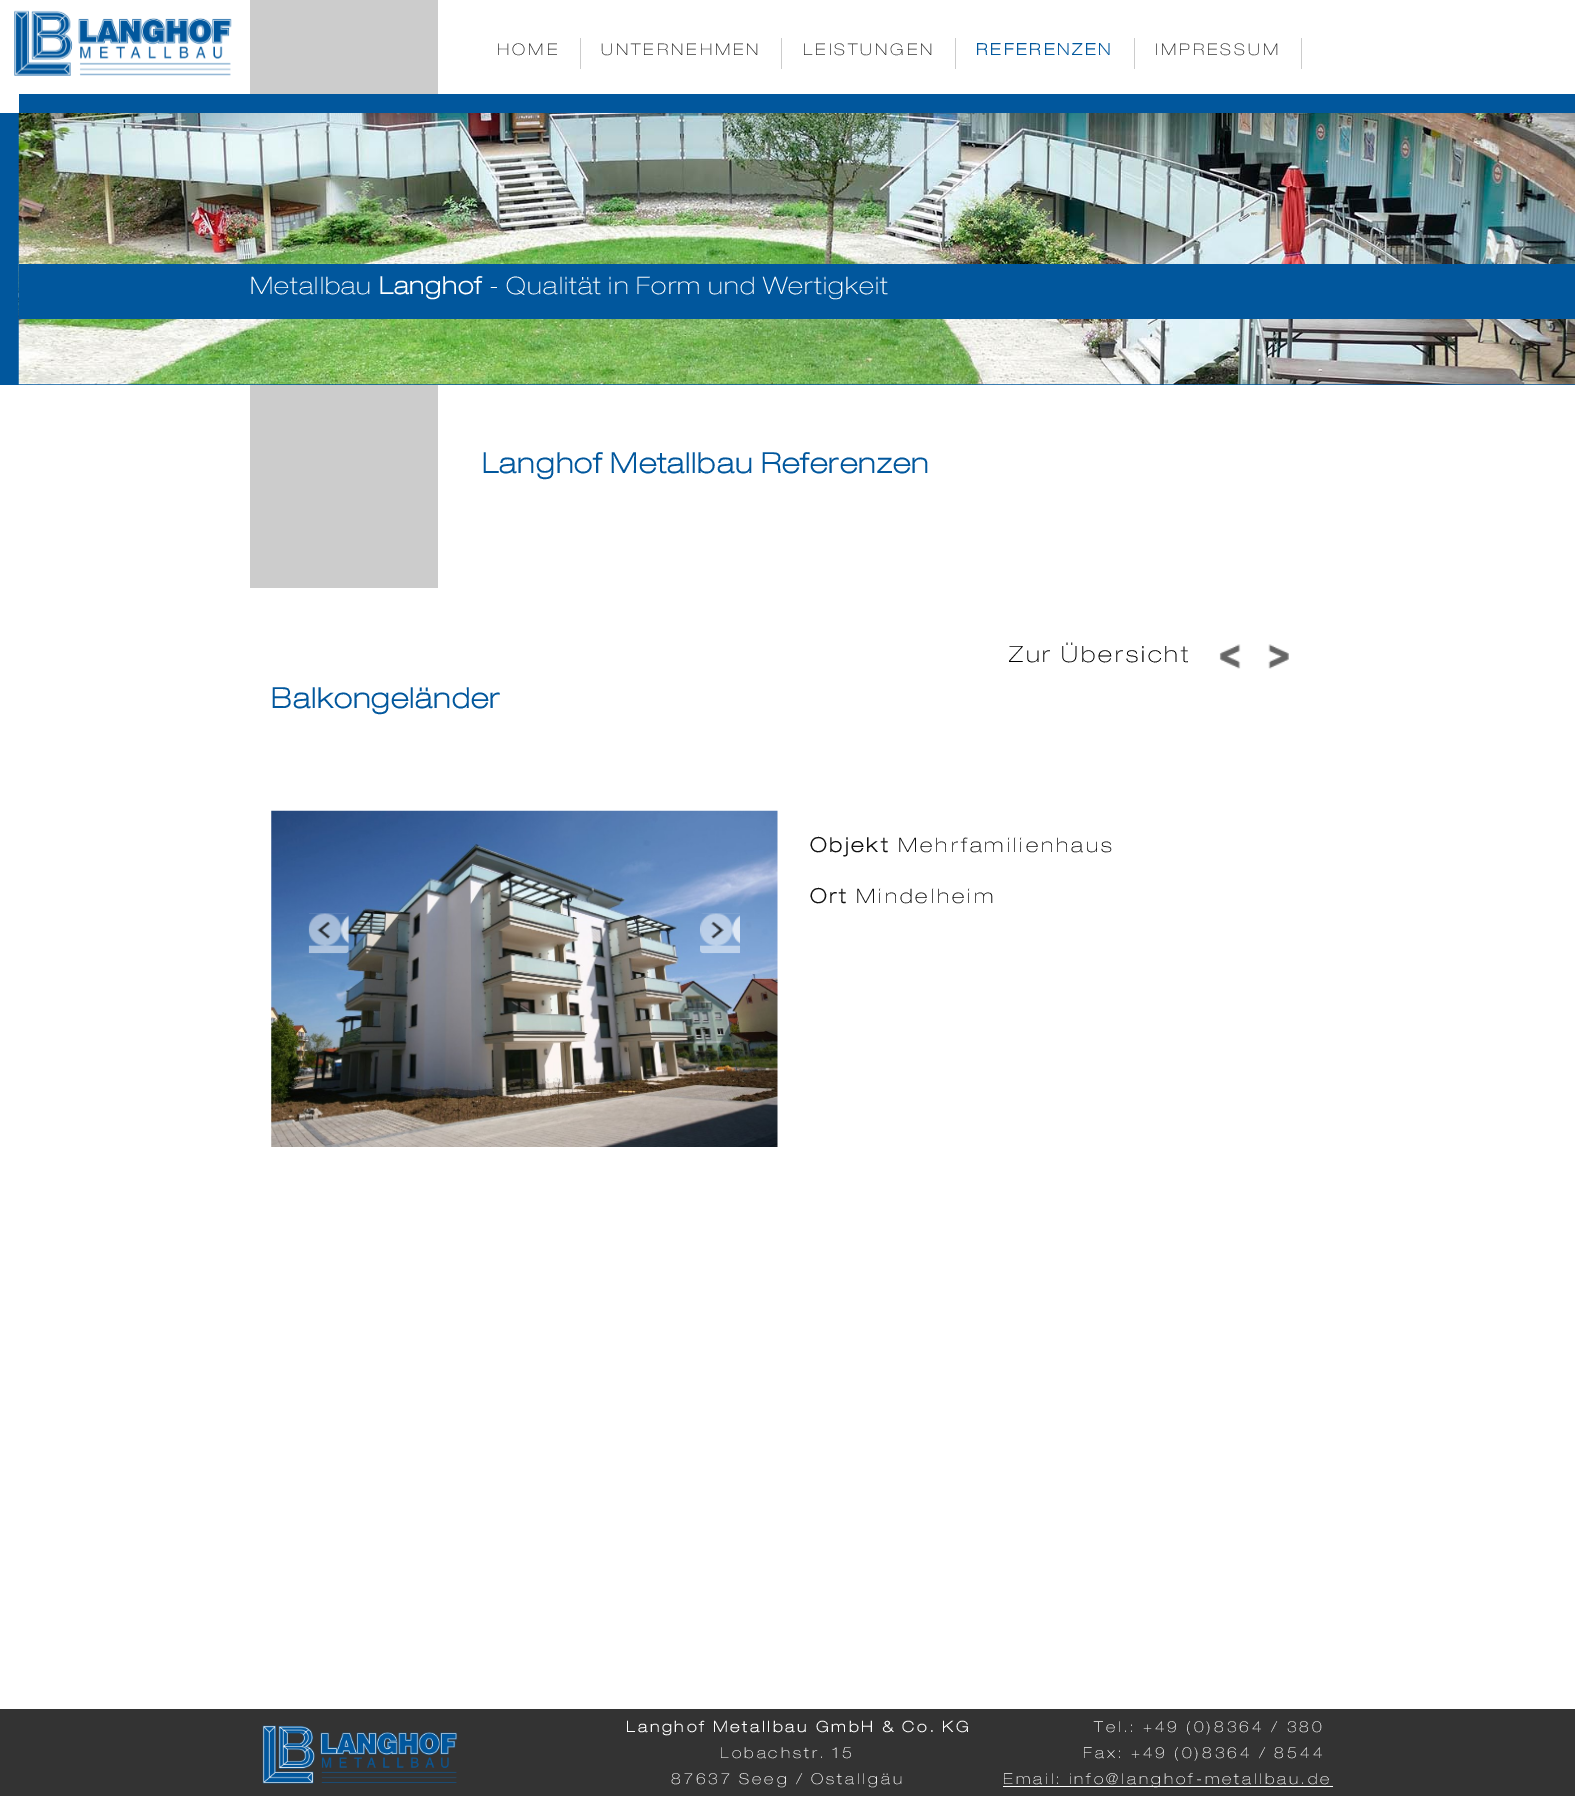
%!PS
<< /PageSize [1575 1796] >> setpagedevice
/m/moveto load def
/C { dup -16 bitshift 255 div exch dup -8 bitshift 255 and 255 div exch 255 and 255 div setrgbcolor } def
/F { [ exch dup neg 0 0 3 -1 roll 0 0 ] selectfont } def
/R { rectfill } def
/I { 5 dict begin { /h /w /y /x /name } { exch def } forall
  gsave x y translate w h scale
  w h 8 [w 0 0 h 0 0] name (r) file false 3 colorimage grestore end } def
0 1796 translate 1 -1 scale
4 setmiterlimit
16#FFFFFF C
0 0 1575 1796 R
(1.rgb) 14 10 218 66 I
16#CCCCCC C
250 0 188 94 R
580 38 1 31 R
/HelveticaNeue-ExtraLight 16 F
16#333333 C
497 55 m 3 0 (HOME) ashow
16#CCCCCC C
781 38 1 31 R
16#333333 C
601 55 m 3 0 (UNTERNEHMEN) ashow
16#CCCCCC C
955 38 1 31 R
16#333333 C
803 55 m 3 0 (LEISTUNGEN) ashow
16#CCCCCC C
1134 38 1 31 R
/HelveticaNeue-Bold 16 F
16#01579D C
976 55 m 3 0 (REFERENZEN) ashow
16#CCCCCC C
1301 38 1 31 R
/HelveticaNeue-ExtraLight 16 F
16#333333 C
1155 55 m 3 0 (IMPRESSUM) ashow
16#01579D C
19 94 1556 19 R
0 113 1575 272 R
(2.rgb) 18 113 1557 272 I
19 264 1556 55 R
/HelveticaNeue-ExtraLight 24 F
16#FFFFFF C
250 294 m 1.2 0 (Metallbau) ashow
/HelveticaNeue-Bold 24 F
379 294 m 1.2 0 (Langhof) ashow
/HelveticaNeue-ExtraLight 24 F
489 294 m 1.2 0 (- Qualität in Form und Wertigkeit) ashow
16#CCCCCC C
250 385 188 203 R
/HelveticaNeue-Bold 28 F
16#01579D C
482 473 m 1.4 0 (Langhof Metallbau Referenzen) ashow
/HelveticaNeue-ExtraLight 22.5 F
16#000000 C
1009 662 m 3 0 (Zur Übersicht) ashow
(3.rgb) 1219 644 22 25 I
(4.rgb) 1268 644 21 25 I
/HelveticaNeue-Bold 28 F
16#01579D C
271 708 m 1.4 0 (Balkongeländer) ashow
(5.rgb) 271 810 507 337 I
(6.rgb) 308 913 41 41 I
(7.rgb) 700 913 40 41 I
/HelveticaNeue-Bold 20 F
16#111111 C
810 852 m 3 0 (Objekt) ashow
/HelveticaNeue-ExtraLight 20 F
898 852 m 3 0 (Mehrfamilienhaus) ashow
/HelveticaNeue-Bold 20 F
810 903 m 3 0 (Ort) ashow
/HelveticaNeue-ExtraLight 20 F
856 903 m 3 0 (Mindelheim) ashow
16#333333 C
0 1709 1575 87 R
(8.rgb) 262 1725 196 59 I
/HelveticaNeue-Bold 15 F
16#FFFFFF C
626 1732 m 3 0 (Langhof Metallbau GmbH & Co. KG) ashow
/HelveticaNeue-ExtraLight 15 F
720 1758 m 3 0 (Lobachstr. 15) ashow
671 1784 m 3 0 (87637 Seeg / Ostallgäu) ashow
1094 1732 m 3 0 (Tel.: +49 \(0\)8364 / 380) ashow
1083 1758 m 3 0 (Fax: +49 \(0\)8364 / 8544) ashow
1003 1786 330 1 R
1003 1784 m 3 0 (Email: info@langhof-metallbau.de) ashow
showpage
